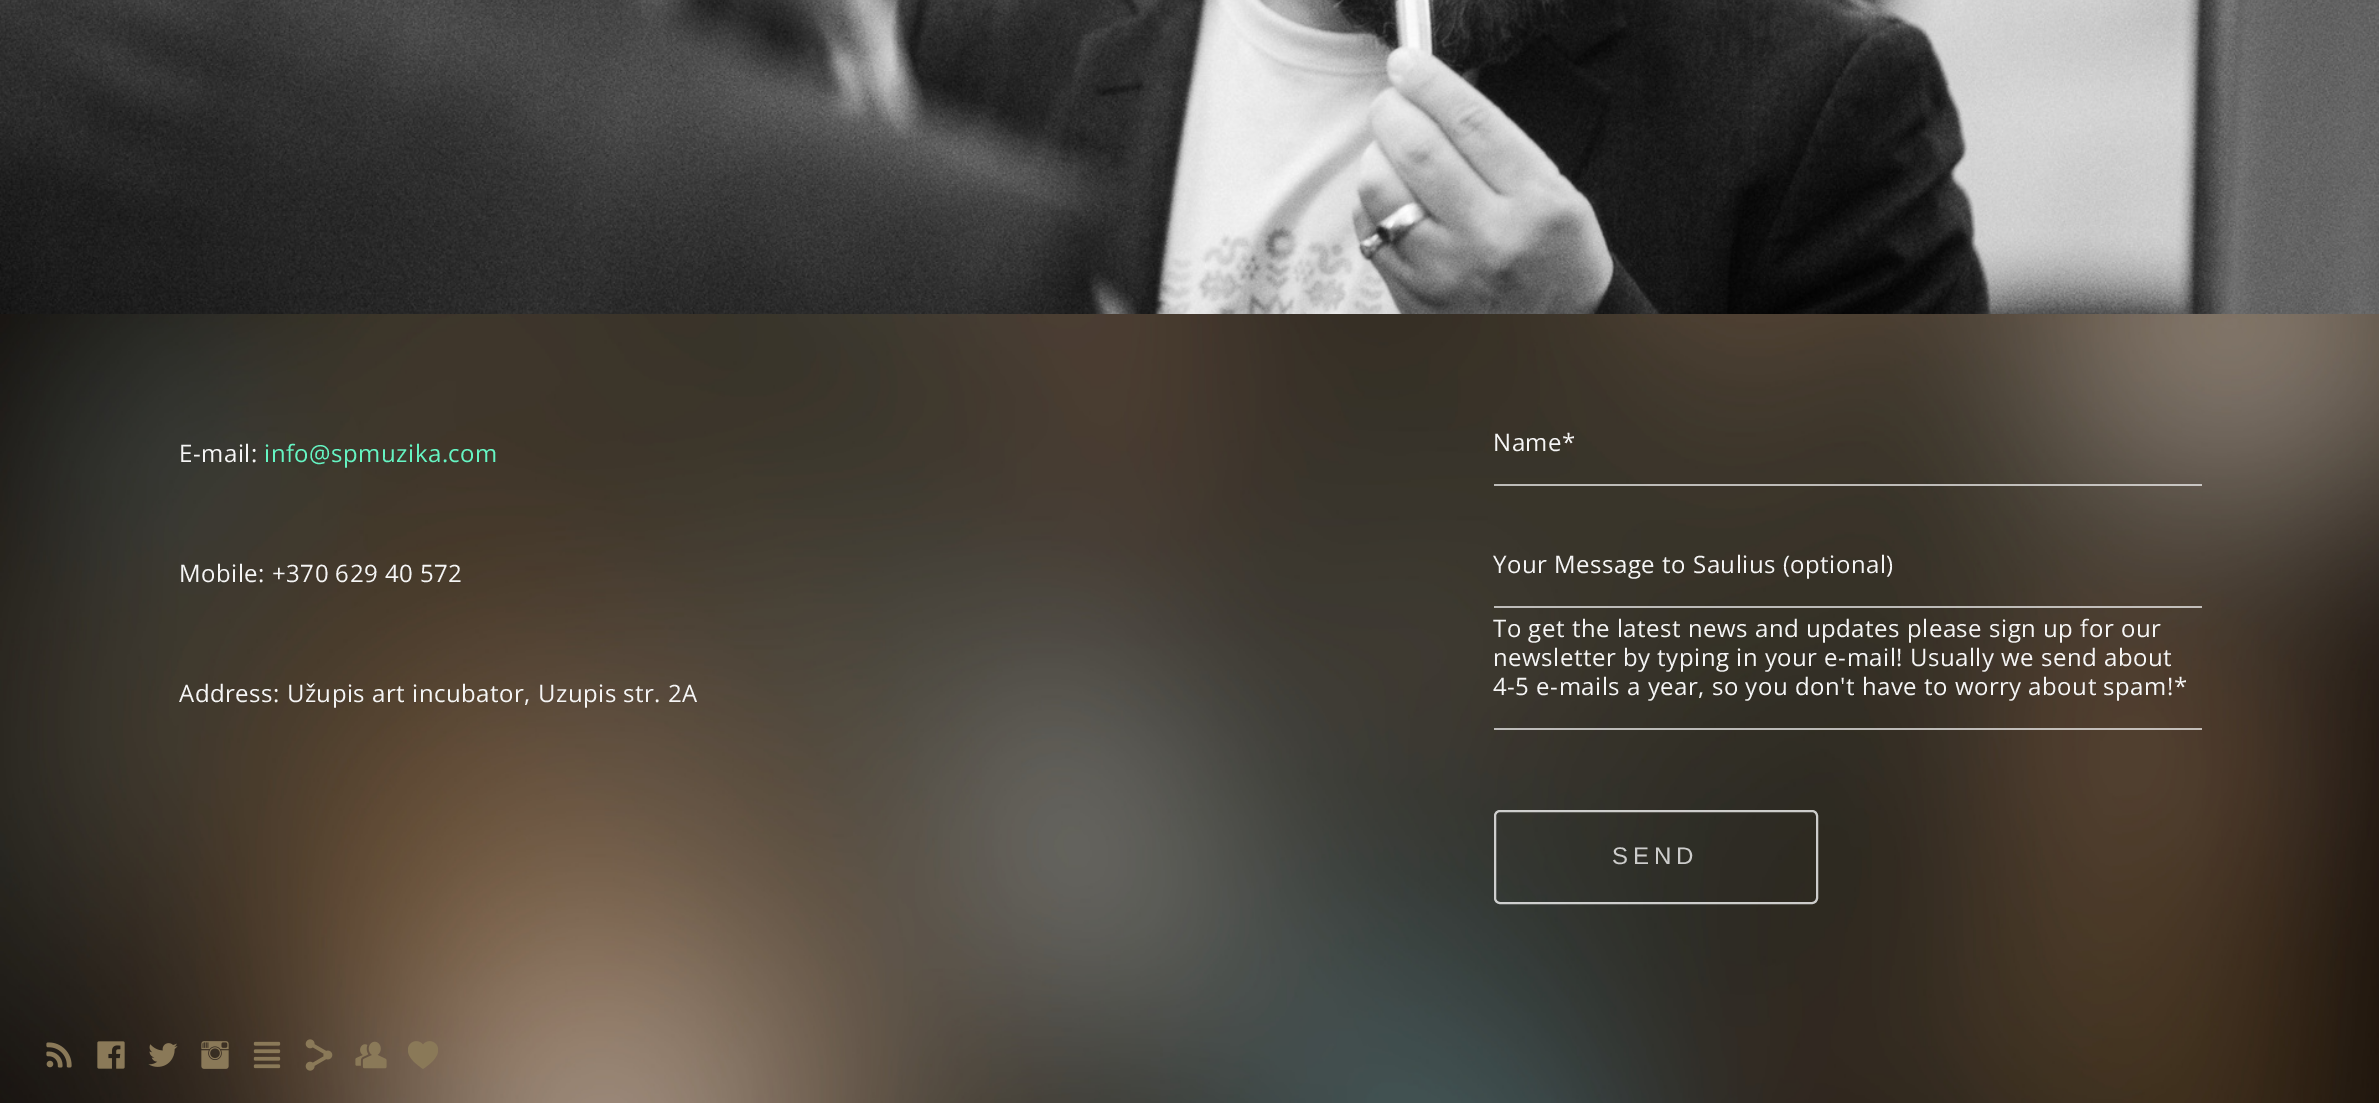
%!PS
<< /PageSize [2379 1103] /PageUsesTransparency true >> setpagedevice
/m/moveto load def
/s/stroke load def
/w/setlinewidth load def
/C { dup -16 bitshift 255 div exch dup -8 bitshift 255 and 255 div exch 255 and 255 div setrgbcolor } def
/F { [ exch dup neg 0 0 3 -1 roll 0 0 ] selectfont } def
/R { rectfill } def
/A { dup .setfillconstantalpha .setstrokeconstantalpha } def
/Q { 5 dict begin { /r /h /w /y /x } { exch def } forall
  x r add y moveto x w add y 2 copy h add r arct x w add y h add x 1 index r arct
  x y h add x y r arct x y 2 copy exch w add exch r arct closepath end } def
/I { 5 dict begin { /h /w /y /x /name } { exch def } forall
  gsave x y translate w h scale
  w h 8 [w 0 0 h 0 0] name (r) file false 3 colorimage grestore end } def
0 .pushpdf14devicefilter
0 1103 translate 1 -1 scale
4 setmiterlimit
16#FFFFFF C
0 0 2379 1103 R
(1.rgb) 0 314 2379 789 I
(2.rgb) 0 0 2379 314 I
/OpenSans-Regular 24 F
16#F5F5F5 C
179 462 m .5 0 (E-mail:) ashow
16#65F5C3 C
264 462 m .5 0 (info@spmuzika.com) ashow
16#F5F5F5 C
179 582 m .5 0 (Mobile: +370 629 40 572) ashow
179 702 m .5 0 (Address: Užupis art incubator, Uzupis str. 2A) ashow
1493 451 m .5 0 (Name*) ashow
0.7 A
1494 484 708 2 R
1 A
1493 573 m .5 0 (Your Message to Saulius \(optional\)) ashow
0.7 A
1494 606 708 2 R
1 A
1493 637 m .5 0 (To get the latest news and updates please sign up for our) ashow
1493 666 m .5 0 (newsletter by typing in your e-mail! Usually we send about) ashow
1493 695 m .5 0 (4-5 e-mails a year, so you don't have to worry about spam!*) ashow
0.7 A
1494 728 708 2 R
0.8 A
2 w
1495 811 322 92 5 Q s
/LiberationSans-Regular 24 F
1 A
16#CDCDCC C
1612 864 m 5 0 (SEND) ashow
(3.rgb) 46 1042 26 26 I
(4.rgb) 97 1041 28 28 I
(5.rgb) 148 1043 30 24 I
(6.rgb) 201 1041 28 28 I
(7.rgb) 253 1041 28 28 I
(8.rgb) 305 1039 28 32 I
(9.rgb) 355 1041 32 28 I
(10.rgb) 408 1041 30 28 I
.poppdf14devicefilter showpage
